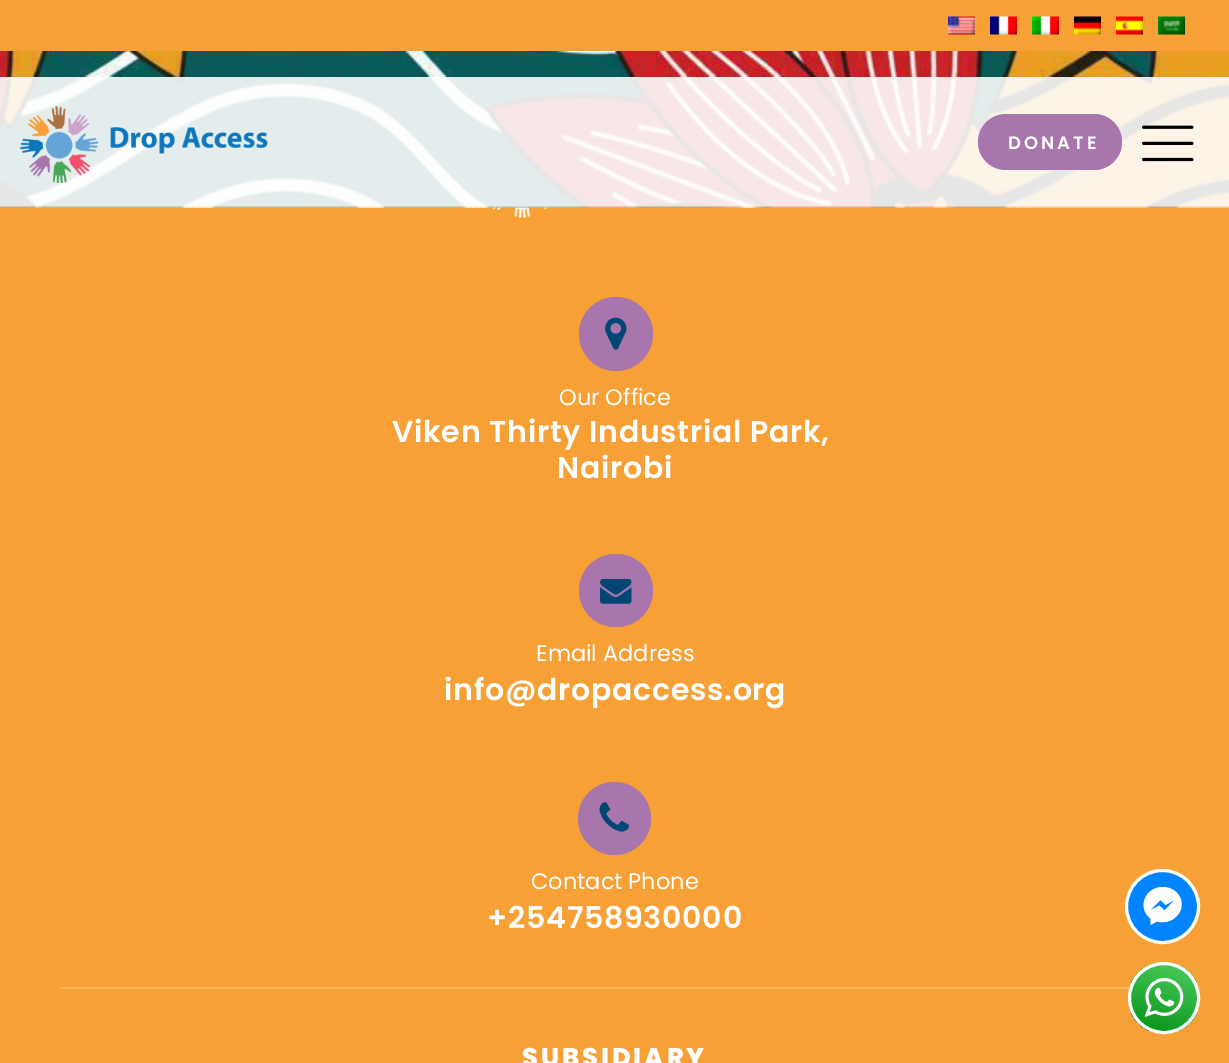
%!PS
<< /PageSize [1229 1063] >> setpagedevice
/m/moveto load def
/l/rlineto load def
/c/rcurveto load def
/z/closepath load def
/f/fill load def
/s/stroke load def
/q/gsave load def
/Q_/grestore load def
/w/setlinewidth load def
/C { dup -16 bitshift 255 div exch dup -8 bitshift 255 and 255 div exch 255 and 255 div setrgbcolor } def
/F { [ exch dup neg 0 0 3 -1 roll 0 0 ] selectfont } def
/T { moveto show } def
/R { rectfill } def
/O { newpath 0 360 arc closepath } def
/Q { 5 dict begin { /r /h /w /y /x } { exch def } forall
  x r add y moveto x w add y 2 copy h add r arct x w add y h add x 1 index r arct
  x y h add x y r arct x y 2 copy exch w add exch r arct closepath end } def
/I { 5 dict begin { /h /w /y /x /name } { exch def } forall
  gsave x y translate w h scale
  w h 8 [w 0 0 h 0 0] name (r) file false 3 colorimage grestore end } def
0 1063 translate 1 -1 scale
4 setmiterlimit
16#F7A036 C
0 0 1229 1063 R
(1.rgb) 948 16 27 19 I
(2.rgb) 990 16 27 19 I
(3.rgb) 1032 16 27 19 I
(4.rgb) 1074 16 27 19 I
(5.rgb) 1116 16 27 19 I
(6.rgb) 1158 16 27 19 I
(7.rgb) 0 51 1229 26 I
(11.rgb) 492 206 60 12 I
(8.rgb) 0 77 1229 131 I
(9.rgb) 19 105 249 78 I
16#A875AD C
978 114 144 56 28 Q f
/Poppins-SemiBold 18 F
16#FFFFFF C
1008 149 m 3 0 (DONATE) ashow
(10.rgb) 1142 125 52 37 I
16#A875AD C
616 334 37 O f
(12.rgb) 605 317 22 33 I
/Poppins-Regular 22.5 F
16#FFFFFF C
(Our Office) 559 405 T
/Poppins-SemiBold 30 F
392 442 m .75 0 (Viken Thirty Industrial Park,) ashow
557 478 m .75 0 (Nairobi) ashow
16#A875AD C
579 554 74 73 36.5 Q f
(13.rgb) 600 579 32 25 I
/Poppins-Regular 22.5 F
16#FFFFFF C
(Email Address) 536 661 T
/Poppins-SemiBold 30 F
444 700 m .75 0 (info@dropaccess.org) ashow
16#A875AD C
614.5 818.5 36.5 O f
(14.rgb) 599 802 30 30 I
/Poppins-Regular 22.5 F
16#FFFFFF C
(Contact Phone) 531 889 T
/Poppins-SemiBold 30 F
487 928 m .75 0 (+254758930000) ashow
16#F9B35E C
60 987 1070 2 R
/Poppins-ExtraBold 25.5 F
16#FFFFFF C
522 1066 m 3 0 (SUBSIDIARY) ashow
16#0084FF C
1162.5 906.5 36 O q f Q_
16#FFFFFF C
3 w
s
1162.5 887 m -17 0 -26 20.5 -12 31.5 c 0 6.5 l 6.5 -3.5 l 18 5 33.5 -16 19 -29.5 c -3.5 -3.5 -8.5 -5 -13.5 -5 c z 1164.5 910.5 m -5 -5 l -9.5 5 l 10.5 -10.5 l 5 5 l 9.5 -5.5 l z f
q
1128 962 72 72 36 Q clip newpath
q 1131 965 m 66 0 l 0 66 l -66 0 l z clip newpath
<< /ShadingType 2 /ColorSpace /DeviceRGB /Coords [1178 958 1150 1037] /Extend [true true] /Function << /FunctionType 2 /Domain [0 1] /C0 [.302 .808 .369] /C1 [.016 .569 .09] /N 1 >> >> shfill Q_
Q_
1164 998 34.5 O s
(15.rgb) 1144 978 40 39 I
showpage
